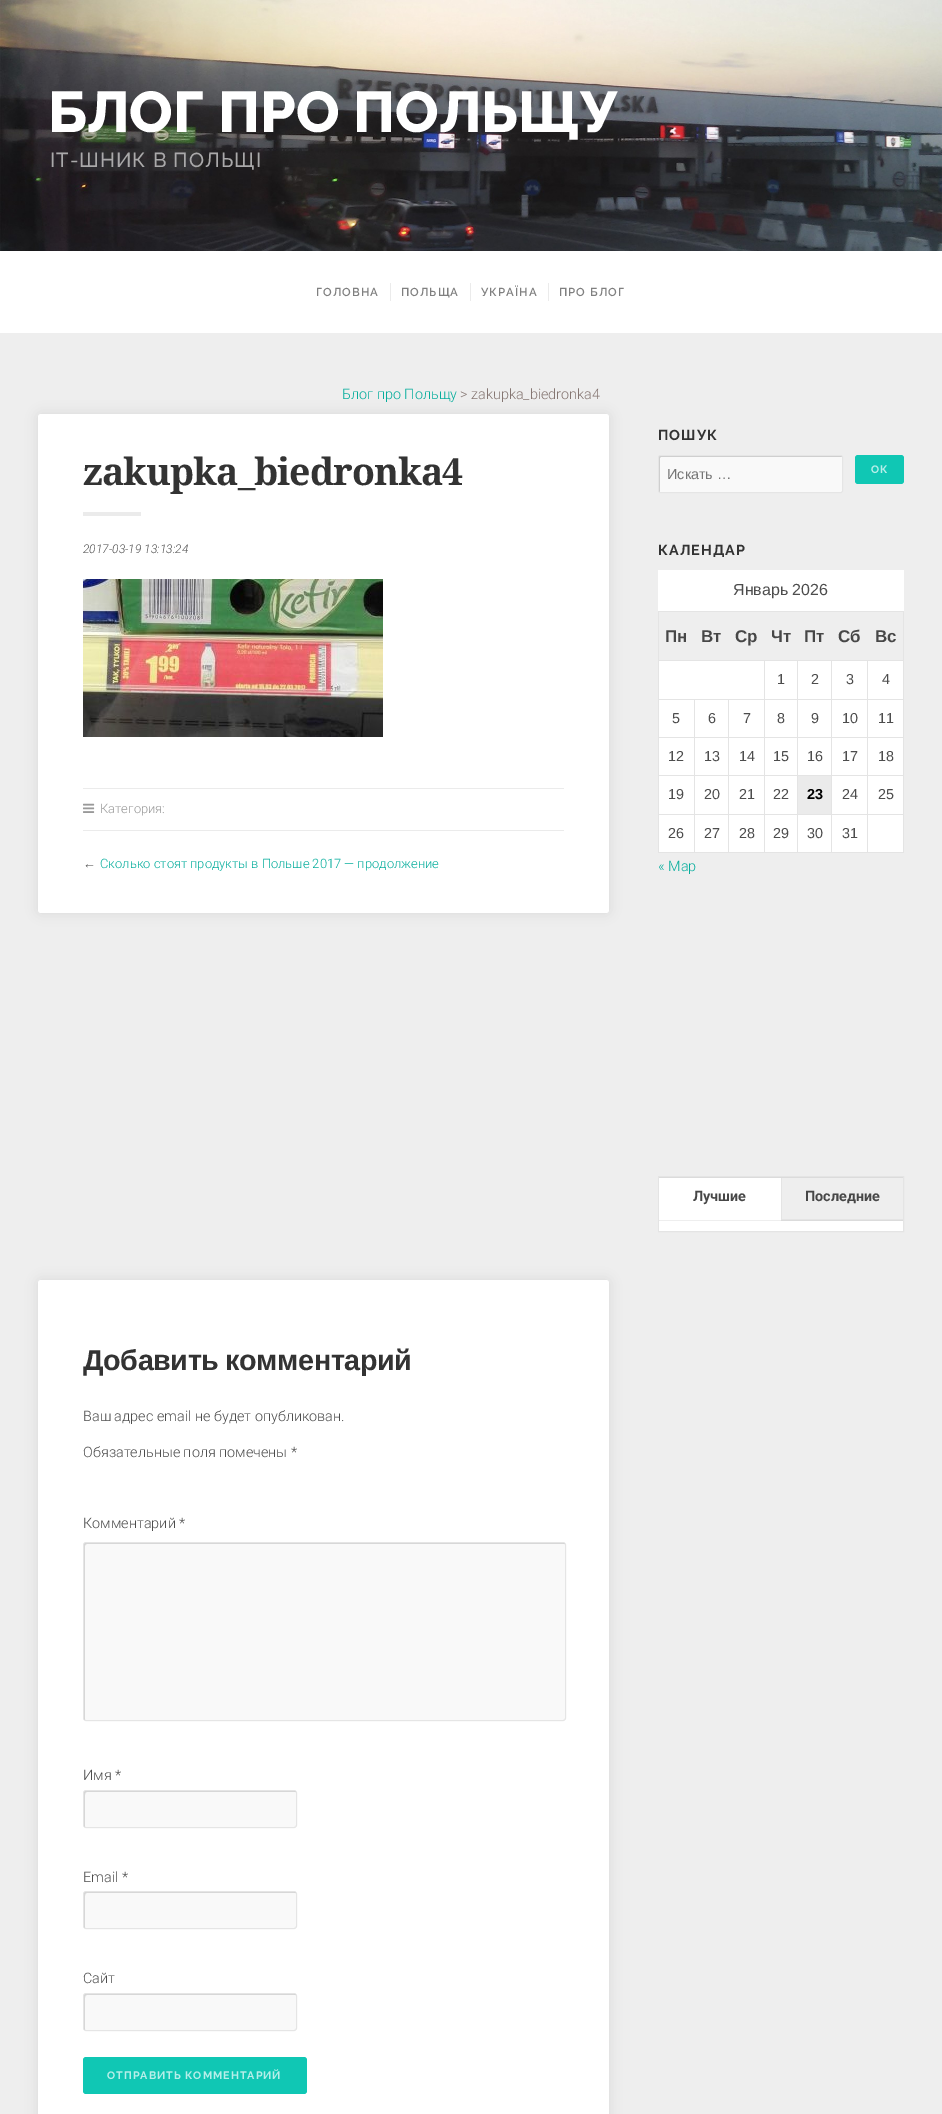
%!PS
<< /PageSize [942 2114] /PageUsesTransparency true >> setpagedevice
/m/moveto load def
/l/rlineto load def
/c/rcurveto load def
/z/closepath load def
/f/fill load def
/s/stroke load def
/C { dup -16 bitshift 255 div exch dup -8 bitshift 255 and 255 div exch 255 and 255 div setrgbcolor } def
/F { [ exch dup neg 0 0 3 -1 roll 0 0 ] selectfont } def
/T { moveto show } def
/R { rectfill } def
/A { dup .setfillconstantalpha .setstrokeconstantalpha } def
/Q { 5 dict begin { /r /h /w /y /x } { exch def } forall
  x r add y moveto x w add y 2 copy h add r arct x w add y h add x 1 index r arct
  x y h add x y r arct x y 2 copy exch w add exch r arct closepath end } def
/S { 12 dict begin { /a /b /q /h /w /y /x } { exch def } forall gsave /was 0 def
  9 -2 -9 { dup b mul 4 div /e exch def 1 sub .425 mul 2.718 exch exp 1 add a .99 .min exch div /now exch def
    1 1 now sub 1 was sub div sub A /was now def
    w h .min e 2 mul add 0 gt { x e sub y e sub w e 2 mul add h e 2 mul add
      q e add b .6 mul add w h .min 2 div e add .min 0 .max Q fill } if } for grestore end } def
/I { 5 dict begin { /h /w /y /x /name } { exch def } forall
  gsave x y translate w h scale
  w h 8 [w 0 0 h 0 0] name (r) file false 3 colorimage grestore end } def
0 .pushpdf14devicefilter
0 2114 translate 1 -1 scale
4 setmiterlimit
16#EEEEEE C
0 0 942 2114 R
(1.rgb) 0 0 942 251 I
/Raleway-ExtraBold 57.5 F
16#FFFFFF C
(БЛОГ ПРО ПОЛЬЩУ) 48 132 T
/Raleway-Medium 20.25 F
16#AAA9AA C
50 167 m 1 0 (IT-ШНИК В ПОЛЬЩІ) ashow
16#FFFFFF C
0 251 942 82 R
/Raleway-SemiBold 11.5 F
16#808080 C
316 296 m 1 0 (ГОЛОВНА) ashow
16#EBEBEB C
390 283 1 18 R
16#808080 C
401 296 m 1 0 (ПОЛЬЩА) ashow
16#EBEBEB C
470 283 1 18 R
16#808080 C
481 296 m 1 0 (УКРАЇНА) ashow
16#EBEBEB C
548 283 1 18 R
16#808080 C
559 296 m 1 0 (ПРО БЛОГ) ashow
/Roboto-Light 14.4 F
16#05AD9C C
(Блог про Польщу) 342 399 T
16#857672 C
(> zakupka_biedronka4) 460 399 T
16#000000 C
38 414 571 499 3 6 .08 S
16#FFFFFF C
38 414 571 499 3 Q f
/DroidSerif-Bold 37.5 F
16#333333 C
83 485 m -1 0 (zakupka_biedronka4) ashow
16#EBEBEB C
83 512 58 4 R
/Roboto-LightItalic 12 F
16#4D4D4D C
(2017-03-19 13:13:24) 83 553 T
(2.rgb) 83 579 300 158 I
16#EBEBEB C
83 788 481 1 R
83 830 481 1 R
(3.rgb) 83 803 12 10 I
/Roboto-Light 12.95 F
16#999999 C
(Категория:) 100 813 T
/LiberationSans-Regular 12.95 F
16#4D4D4D C
(←) 83 868 T
/Roboto-Light 12.95 F
16#05AD9C C
(Сколько стоят продукты в Польше 2017 — продолжение) 100 868 T
16#000000 C
38 1280 571 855 3 6 .08 S
16#FFFFFF C
38 1280 571 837 3 Q f
/LiberationSans-Bold 28.75 F
16#333333 C
83 1370 m -1 0 32 -.4 0 (Добавить комментарий) awidthshow
/Roboto-Light 14.4 F
16#4D4D4D C
(Ваш адрес email не будет опубликован.) 83 1421 T
(Обязательные поля помечены *) 83 1457 T
(Комментарий *) 83 1528 T
16#F9F9F9 C
83 1542 483 179 3 Q f
16#DBDBDB C
87 1544 m 478 0 l 0 0 -1 -1 -2 -1 c -477 0 l -1 0 -2 1 -2 2 c 0 173 l 0 1 1 2 1 2 c 0 -174 l 0 -1 1 -2 2 -2 c z f
0.08 A
16#000000 C
83.5 1542.5 482 178 2.5 Q s
1 A
16#4D4D4D C
(Имя *) 83 1780 T
16#F9F9F9 C
83 1790 214 38 3 Q f
16#DBDBDB C
87 1792 m 209 0 l 0 0 -1 -1 -2 -1 c -208 0 l -1 0 -2 1 -2 2 c 0 32 l 0 1 1 2 1 2 c 0 -28 l 0 0 -1 -7 2 -7 c z f
0.08 A
16#000000 C
83.5 1790.5 213 37 2.5 Q s
1 A
16#4D4D4D C
(Email *) 83 1882 T
16#F9F9F9 C
83 1891 214 38 3 Q f
16#DBDBDB C
87 1893 m 209 0 l 0 0 -1 -1 -2 -1 c -208 0 l -1 0 -2 1 -2 2 c 0 32 l 0 1 1 2 1 2 c 0 -28 l 0 0 -1 -7 2 -7 c z f
0.08 A
16#000000 C
83.5 1891.5 213 37 2.5 Q s
1 A
16#4D4D4D C
(Сайт) 83 1983 T
16#F9F9F9 C
83 1993 214 38 3 Q f
16#DBDBDB C
87 1995 m 209 0 l 0 0 -1 -1 -2 -1 c -208 0 l -1 0 -2 1 -2 2 c 0 32 l 0 1 1 2 1 2 c 0 -28 l 0 0 -1 -7 2 -7 c z f
0.08 A
16#000000 C
83.5 1993.5 213 37 2.5 Q s
1 A
16#10C7B4 C
83 2057 224 37 3 Q f
/Raleway-Bold 10.75 F
16#B7EEE9 C
107 2079 m 1 0 (ОТПРАВИТЬ КОММЕНТАРИЙ) ashow
/Raleway-Bold 14.4 F
16#333333 C
658 440 m 1 0 (ПОШУК) ashow
16#F9F9F9 C
658 455 185 38 2 Q f
16#C7C7C7 C
661 457 m 181 0 l 0 -1 0 -1 -1 -1 c -181 0 l -1 0 -1 0 -1 1 c 0 34 l 0 1 0 1 1 1 c 0 -34 l 0 -1 0 -1 1 -1 c z f
16#E5E5E5 C
658.5 455.5 184 37 1.5 Q s
/LiberationSans-Regular 14.4 F
16#757575 C
(Искать …) 667 479 T
16#10C7B4 C
855 455 49 29 3 Q f
/Raleway-Bold 10.75 F
16#B7EEE9 C
871 473 m 1 0 (ОК) ashow
/Raleway-Bold 14.4 F
16#333333 C
658 555 m 1 0 (КАЛЕНДАР) ashow
16#FFFFFF C
658 570 246 282 R
/LiberationSans-Regular 16 F
16#4D4D4D C
(Январь 2026) 733 595 T
16#E4E4E4 C
658 611 246 1 R
903 611 1 50 R
658 660 246 1 R
658 611 1 50 R
16#EEEEEE C
659 612 244 48 R
/LiberationSans-Bold 17 F
16#474747 C
(Пн) 665 642 T
(Вт) 701 642 T
(Ср) 735 642 T
(Чт) 771 642 T
(Пт) 804 642 T
(Сб) 838 642 T
(Вс) 875 642 T
16#E4E4E4 C
867 699 37 1 R
867 737 37 1 R
867 775 37 1 R
867 814 37 1 R
903 814 1 39 R
867 852 37 1 R
867 814 1 39 R
831 814 37 1 R
867 775 1 40 R
831 775 37 1 R
867 737 1 39 R
831 737 37 1 R
867 699 1 39 R
831 699 37 1 R
831 852 37 1 R
831 814 1 39 R
797 814 35 1 R
831 775 1 40 R
797 775 35 1 R
831 737 1 39 R
797 737 35 1 R
831 699 1 39 R
797 699 35 1 R
797 852 35 1 R
797 814 1 39 R
764 814 34 1 R
797 775 1 40 R
764 775 34 1 R
797 737 1 39 R
764 737 34 1 R
797 699 1 39 R
764 699 34 1 R
764 852 34 1 R
764 814 1 39 R
728 814 37 1 R
764 775 1 40 R
728 775 37 1 R
764 737 1 39 R
728 737 37 1 R
764 699 1 39 R
728 699 37 1 R
764 660 1 40 R
/LiberationSans-Regular 14.4 F
16#4D4D4D C
(1) 777 684 T
16#E4E4E4 C
797 660 1 40 R
16#4D4D4D C
(2) 811 684 T
16#E4E4E4 C
831 660 1 40 R
16#4D4D4D C
(3) 846 684 T
16#E4E4E4 C
867 660 1 40 R
16#4D4D4D C
(4) 882 684 T
16#E4E4E4 C
728 852 37 1 R
728 814 1 39 R
694 814 35 1 R
728 775 1 40 R
694 775 35 1 R
728 737 1 39 R
694 737 35 1 R
728 699 1 39 R
694 699 35 1 R
694 852 35 1 R
694 814 1 39 R
658 814 37 1 R
694 775 1 40 R
658 775 37 1 R
694 737 1 39 R
658 737 37 1 R
694 699 1 39 R
658 699 37 1 R
658 852 37 1 R
658 814 1 39 R
658 775 1 40 R
658 737 1 39 R
658 660 1 78 R
16#4D4D4D C
(5) 672 723 T
(6) 708 723 T
(7) 743 723 T
(8) 777 723 T
(9) 811 723 T
(10) 842 723 T
16#E4E4E4 C
903 775 1 40 R
903 737 1 39 R
903 660 1 78 R
16#4D4D4D C
(11) 878 723 T
(12) 668 761 T
(13) 704 761 T
(14) 739 761 T
(15) 773 761 T
(16) 807 761 T
(17) 842 761 T
(18) 878 761 T
(19) 668 799 T
(20) 704 799 T
(21) 739 799 T
(22) 773 799 T
16#EBEBEB C
798 776 33 38 R
/LiberationSans-Bold 14.4 F
16#000000 C
(23) 807 799 T
/LiberationSans-Regular 14.4 F
16#4D4D4D C
(24) 842 799 T
(25) 878 799 T
(26) 668 838 T
(27) 704 838 T
(28) 739 838 T
(29) 773 838 T
(30) 807 838 T
(31) 842 838 T
/Roboto-Light 14.4 F
16#05AD9C C
(« Мар) 658 871 T
16#E4E4E4 C
658.5 1176.5 245 55 rectstroke
16#DBDBDB C
659 1177 244 1 R
16#FFFFFF C
659 1178 122 42 R
/Roboto-Bold 14.4 F
16#474747 C
(Лучшие) 693 1201 T
16#DBDBDB C
781 1220 122 1 R
16#E4E4E4 C
781 1219 122 1 R
781 1178 1 42 R
16#474747 C
(Последние) 805 1201 T
16#FFFFFF C
659 1221 244 10 R
.poppdf14devicefilter showpage
